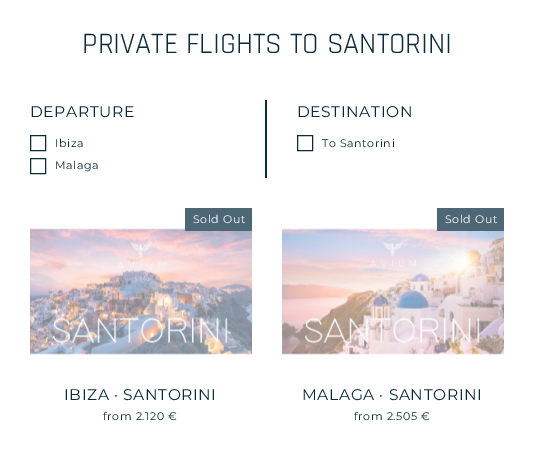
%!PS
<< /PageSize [534 456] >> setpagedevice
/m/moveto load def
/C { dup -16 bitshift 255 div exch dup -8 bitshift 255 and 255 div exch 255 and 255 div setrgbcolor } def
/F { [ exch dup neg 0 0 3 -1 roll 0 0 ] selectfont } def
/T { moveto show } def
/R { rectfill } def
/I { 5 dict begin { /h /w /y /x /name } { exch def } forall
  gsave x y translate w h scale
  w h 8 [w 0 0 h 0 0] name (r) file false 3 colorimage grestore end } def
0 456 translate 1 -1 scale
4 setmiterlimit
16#FFFFFF C
0 0 534 456 R
/Rajdhani-Regular 29.75 F
16#0C2B3A C
(PRIVATE FLIGHTS TO SANTORINI) 82 53 T
265 100 2 78 R
/Montserrat-Regular 15.5 F
30 117 m .6 0 (DEPARTURE) ashow
30.5 135.5 15 15 rectstroke
/Montserrat-Regular 11 F
55 147 m .6 0 (Ibiza) ashow
30.5 158.5 15 15 rectstroke
55 169 m .6 0 (Malaga) ashow
/Montserrat-Regular 15.5 F
297 117 m .6 0 (DESTINATION) ashow
297.5 135.5 15 15 rectstroke
/Montserrat-Regular 11 F
322 147 m .6 0 (To Santorini) ashow
(1.rgb) 30 228 222 127 I
16#4E6776 C
185 208 67 23 R
16#FFFFFF C
193 223 m .6 0 (Sold Out) ashow
/Montserrat-Regular 15.5 F
16#0C2B3A C
64 400 m .6 0 (IBIZA · SANTORINI) ashow
/Montserrat-Regular 11 F
103 420 m .6 0 (from 2.120 €) ashow
(2.rgb) 282 228 222 127 I
16#4E6776 C
437 208 67 23 R
16#FFFFFF C
445 223 m .6 0 (Sold Out) ashow
/Montserrat-Regular 15.5 F
16#0C2B3A C
302 400 m .6 0 (MALAGA · SANTORINI) ashow
/Montserrat-Regular 11 F
354 420 m .6 0 (from 2.505 €) ashow
showpage
